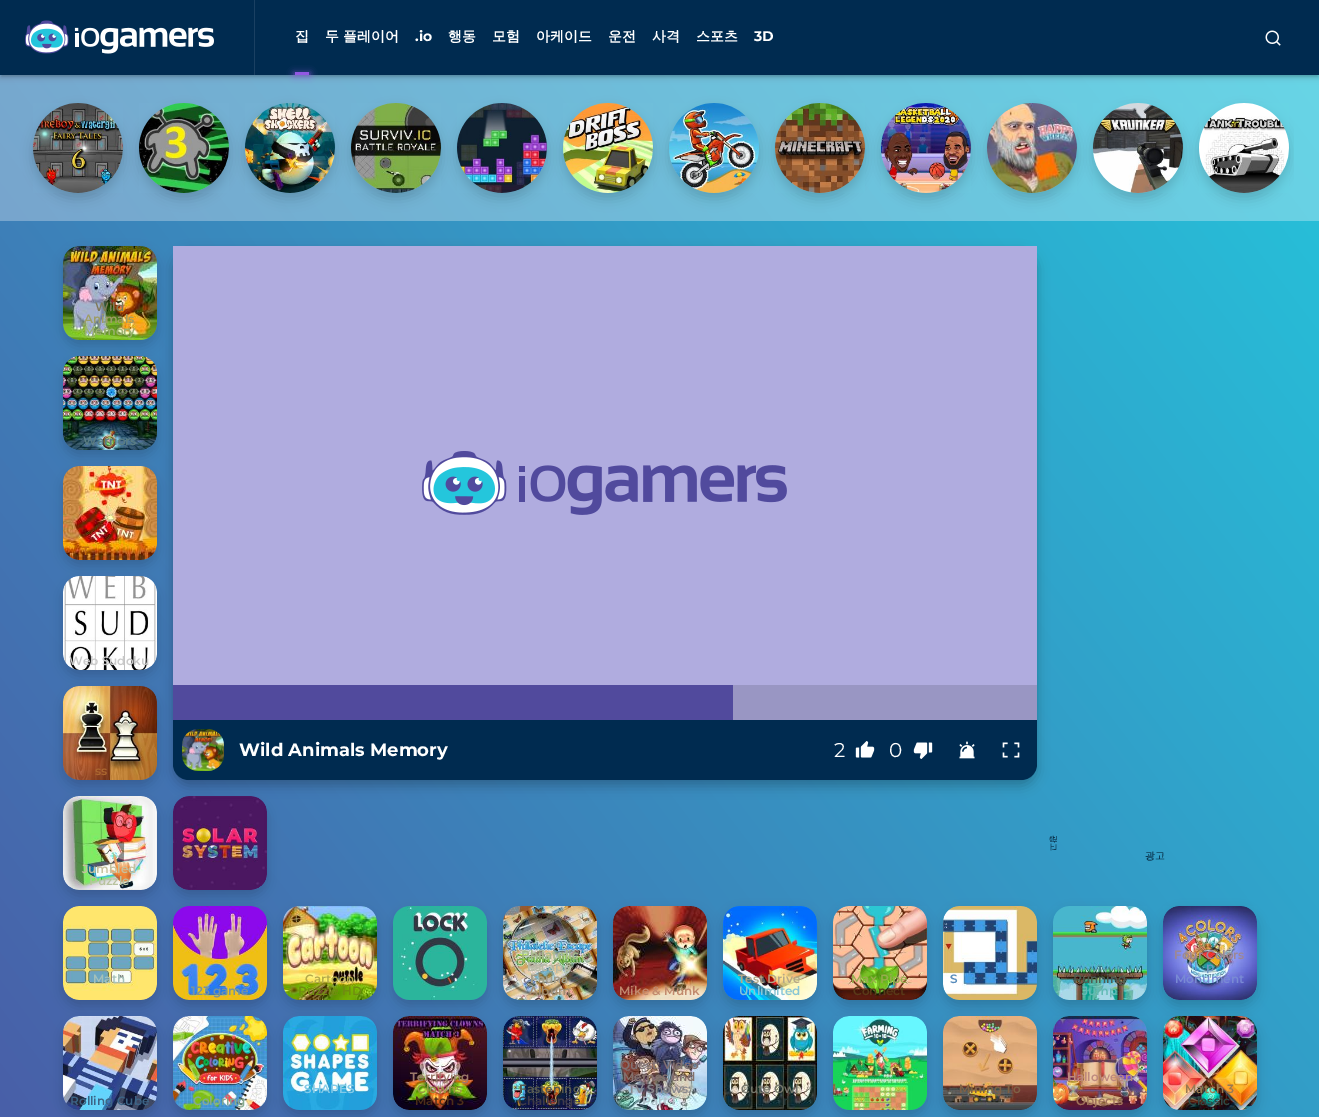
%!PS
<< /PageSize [1319 1117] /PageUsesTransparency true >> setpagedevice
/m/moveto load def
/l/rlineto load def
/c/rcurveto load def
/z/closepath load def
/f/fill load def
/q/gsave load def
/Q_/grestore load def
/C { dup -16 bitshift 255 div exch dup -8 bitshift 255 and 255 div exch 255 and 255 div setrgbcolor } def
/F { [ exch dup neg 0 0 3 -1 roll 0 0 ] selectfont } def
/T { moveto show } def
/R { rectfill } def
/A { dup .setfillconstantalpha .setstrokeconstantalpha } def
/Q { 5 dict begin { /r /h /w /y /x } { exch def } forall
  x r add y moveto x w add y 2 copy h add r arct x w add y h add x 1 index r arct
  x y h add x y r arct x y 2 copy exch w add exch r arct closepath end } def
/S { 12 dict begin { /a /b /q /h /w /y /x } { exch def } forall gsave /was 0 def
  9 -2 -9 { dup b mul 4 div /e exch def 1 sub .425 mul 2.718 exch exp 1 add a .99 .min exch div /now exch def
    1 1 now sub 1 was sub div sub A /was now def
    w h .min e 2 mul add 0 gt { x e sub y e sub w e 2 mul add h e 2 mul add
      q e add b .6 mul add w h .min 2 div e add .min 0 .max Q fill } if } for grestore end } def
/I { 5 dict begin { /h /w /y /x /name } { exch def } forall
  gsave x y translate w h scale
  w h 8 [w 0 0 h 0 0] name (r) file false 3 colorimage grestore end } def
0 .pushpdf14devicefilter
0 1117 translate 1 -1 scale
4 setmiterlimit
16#FFFFFF C
0 0 1319 1117 R
q 0 221 m 1319 0 l 0 896 l -1319 0 l z clip newpath
<< /ShadingType 2 /ColorSpace /DeviceRGB /Coords [-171 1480 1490 227] /Extend [true true] /Function << /FunctionType 2 /Domain [0 1] /C0 [.318 .29 .616] /C1 [.141 .776 .863] /N 1 >> >> shfill Q_
q 0 75 m 1319 0 l 0 146 l -1319 0 l z clip newpath
<< /ShadingType 2 /ColorSpace /DeviceRGB /Coords [-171 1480 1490 227] /Extend [true true] /Function << /FunctionType 2 /Domain [0 1] /C0 [.522 .502 .729] /C1 [.4 .843 .906] /N 1 >> >> shfill Q_
16#000000 C
0 1 1319 75 0 4 .09 S
0 3 1319 75 0 2 .09 S
2 5 1315 71 0 1.5 .15 S
16#002B50 C
0 0 1319 75 R
16#1A4062 C
254 0 1 75 R
(1.rgb) 25 20 189 34 I
16#9258E3 C
295 72 14 3 R
/WenQuanYiZenHei-Bold 14 F
16#FFFFFF C
(집) 295 41 T
16#9258E3 C
294 73 16 3 0 3.5 .7 S
16#FFFFFF C
(두 플레이어) 325 41 T
/Montserrat-Bold 14 F
(.io) 415 41 T
/WenQuanYiZenHei-Bold 14 F
(행동) 448 41 T
(모험) 492 41 T
(아케이드) 536 41 T
(운전) 608 41 T
(사격) 652 41 T
(스포츠) 696 41 T
/Montserrat-Bold 14 F
(3D) 754 41 T
(2.rgb) 1265 30 16 16 I
16#000000 C
33 109 90 90 45 6 .16 S
(3.rgb) 33 103 90 90 I
139 109 90 90 45 6 .16 S
(4.rgb) 139 103 90 90 I
245 109 90 90 45 6 .16 S
(5.rgb) 245 103 90 90 I
351 109 90 90 45 6 .16 S
(6.rgb) 351 103 90 90 I
457 109 90 90 45 6 .16 S
(7.rgb) 457 103 90 90 I
563 109 90 90 45 6 .16 S
(8.rgb) 563 103 90 90 I
669 109 90 90 45 6 .16 S
(9.rgb) 669 103 90 90 I
775 109 90 90 45 6 .16 S
(10.rgb) 775 103 90 90 I
881 109 90 90 45 6 .16 S
(11.rgb) 881 103 90 90 I
987 109 90 90 45 6 .16 S
(12.rgb) 987 103 90 90 I
1093 109 90 90 45 6 .16 S
(13.rgb) 1093 103 90 90 I
q
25 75 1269 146 rectclip
1199 109 90 90 45 6 .16 S
Q_
(14.rgb) 1199 103 90 90 I
173 252 864 534 16 6 .24 S
16#002B50 C
173 246 m 864 0 l 0 518 l 0 9 -7 16 -16 16 c -832 0 l -9 0 -16 -7 -16 -16 c z f
16#000000 C
63 252 94 94 16 6 .16 S
(15.rgb) 63 246 94 94 I
/Montserrat-SemiBold 12 F
16#80795A C
(Wild) 95 311 T
16#9E9D66 C
(Animals) 84 323 T
16#9BB270 C
(Memory) 84 335 T
16#000000 C
63 362 94 94 16 6 .16 S
(16.rgb) 63 356 94 94 I
16#5A7C83 C
(Warriors) 83 445 T
16#000000 C
63 472 94 94 16 6 .16 S
(17.rgb) 63 466 94 94 I
16#C46C0D C
(T) 82 555 T
16#000000 C
63 582 94 94 16 6 .16 S
(18.rgb) 63 576 94 94 I
16#CACACA C
(Web Sudoku) 69 665 T
16#002B50 C
173 723 m 864 0 l 0 38 l 0 9 -7 16 -16 16 c -832 0 l -9 0 -16 -7 -16 -16 c z f
16#000000 C
63 692 94 94 16 6 .16 S
16#B0ACDF C
173 246 864 439 R
(19.rgb) 422 451 365 64 I
16#9996C3 C
733 685 304 35 R
16#514A9D C
173 685 560 35 R
(20.rgb) 182 729 42 42 I
/Montserrat-Bold 18 F
16#FFFFFF C
(Wild Animals Memory) 239 756 T
/Montserrat-Regular 20 F
(2) 834 757 T
(21.rgb) 855 741 20 17 I
(0) 889 757 T
(22.rgb) 913 742 20 17 I
(23.rgb) 959 741 16 18 I
(24.rgb) 1002 742 18 16 I
(25.rgb) 63 686 94 94 I
/Montserrat-SemiBold 12 F
16#AB662F C
(ss) 95 775 T
16#000000 C
63 802 94 94 16 6 .16 S
(27.rgb) 63 796 94 94 I
173 802 94 94 16 6 .16 S
(26.rgb) 173 796 94 94 I
/WenQuanYiZenHei-Medium 8 F
16#001B31 C
q 1051 835 translate 90 rotate 0 0 m (광고) show Q_
/WenQuanYiZenHei-Medium 10 F
(광고) 1145 859 T
/Montserrat-SemiBold 12 F
16#C5C19F C
(Jumbled) 82 873 T
16#B8C29E C
(Puzzle) 89 885 T
16#000000 C
63 912 94 94 16 6 .16 S
(28.rgb) 63 906 94 94 I
16#A5C0B9 C
(Math) 93 983 T
16#000000 C
173 912 94 94 16 6 .16 S
(37.rgb) 173 906 94 94 I
283 912 94 94 16 6 .16 S
(29.rgb) 283 906 94 94 I
16#B5AA4B C
(Cartoon) 305 983 T
16#708C10 C
(Puzzle HD) 298 995 T
16#000000 C
393 912 94 94 16 6 .16 S
(30.rgb) 393 906 94 94 I
503 912 94 94 16 6 .16 S
(31.rgb) 503 906 94 94 I
16#A8B98F C
(Philatelic) 521 959 T
16#B8BBA6 C
(Escape) 527 971 T
16#A39D8A C
(Fauna) 530 983 T
16#A48E71 C
(Album) 529 995 T
16#000000 C
613 912 94 94 16 6 .16 S
(38.rgb) 613 906 94 94 I
723 912 94 94 16 6 .16 S
(32.rgb) 723 906 94 94 I
16#B5A788 C
(Test Drive) 738 983 T
16#88C5D5 C
(Unlimited) 739 995 T
16#000000 C
833 912 94 94 16 6 .16 S
(33.rgb) 833 906 94 94 I
16#97AD4D C
(Max Pipe) 851 983 T
16#593A18 C
(Connect) 853 995 T
16#000000 C
943 912 94 94 16 6 .16 S
(34.rgb) 943 906 94 94 I
16#588CBC C
(S) 950 983 T
16#000000 C
1053 912 94 94 16 6 .16 S
(35.rgb) 1053 906 94 94 I
16#4E5E51 C
(Running) 1073 983 T
16#62BAB4 C
(Jump) 1082 995 T
16#000000 C
1163 912 94 94 16 6 .16 S
(36.rgb) 1163 906 94 94 I
16#9C8795 C
(Four Colors) 1174 959 T
16#6F98C4 C
(l) 1194 971 T
(p) 1206 971 T
16#798AD4 C
(Monument) 1175 983 T
16#78949A C
(123 game) 191 995 T
16#C1896D C
(Mike & Munk) 619 995 T
16#000000 C
63 1022 94 94 16 6 .16 S
(39.rgb) 63 1016 94 94 I
16#3C6486 C
(Rolling Cube) 70 1105 T
16#000000 C
173 1022 94 94 16 6 .16 S
(40.rgb) 173 1016 94 94 I
16#87AA90 C
(Coloring) 193 1105 T
16#000000 C
283 1022 94 94 16 6 .16 S
(41.rgb) 283 1016 94 94 I
16#82CAE8 C
(SHAPES) 304 1093 T
16#000000 C
393 1022 94 94 16 6 .16 S
(42.rgb) 393 1016 94 94 I
16#9C796A C
(Terrifying) 410 1081 T
16#999642 C
(Clowns) 417 1093 T
16#4C2E19 C
(Match 3) 415 1105 T
16#000000 C
503 1022 94 94 16 6 .16 S
(43.rgb) 503 1016 94 94 I
16#57594E C
(Fastening) 519 1093 T
16#403B49 C
(Challenge) 518 1105 T
16#000000 C
613 1022 94 94 16 6 .16 S
(44.rgb) 613 1016 94 94 I
16#817173 C
(Quest: Video) 620 1069 T
16#83716D C
(Memes and) 623 1081 T
16#89898E C
(TV Shows:) 628 1093 T
16#AEC1C9 C
(Part 1) 642 1105 T
16#000000 C
723 1022 94 94 16 6 .16 S
(45.rgb) 723 1016 94 94 I
16#75776B C
(Cute Owl) 741 1093 T
16#233333 C
(r) 783 1105 T
16#000000 C
833 1022 94 94 16 6 .16 S
(46.rgb) 833 1016 94 94 I
943 1022 94 94 16 6 .16 S
(47.rgb) 943 1016 94 94 I
16#7F6145 C
(Mining To) 959 1093 T
16#000000 C
1053 1022 94 94 16 6 .16 S
(48.rgb) 1053 1016 94 94 I
16#BD897E C
(Halloween) 1067 1081 T
16#A0725A C
(Objects) 1076 1105 T
16#000000 C
1163 1022 94 94 16 6 .16 S
(49.rgb) 1163 1016 94 94 I
16#987A51 C
(Match 3) 1185 1093 T
16#2E4945 C
(Classic) 1188 1105 T
.poppdf14devicefilter showpage
